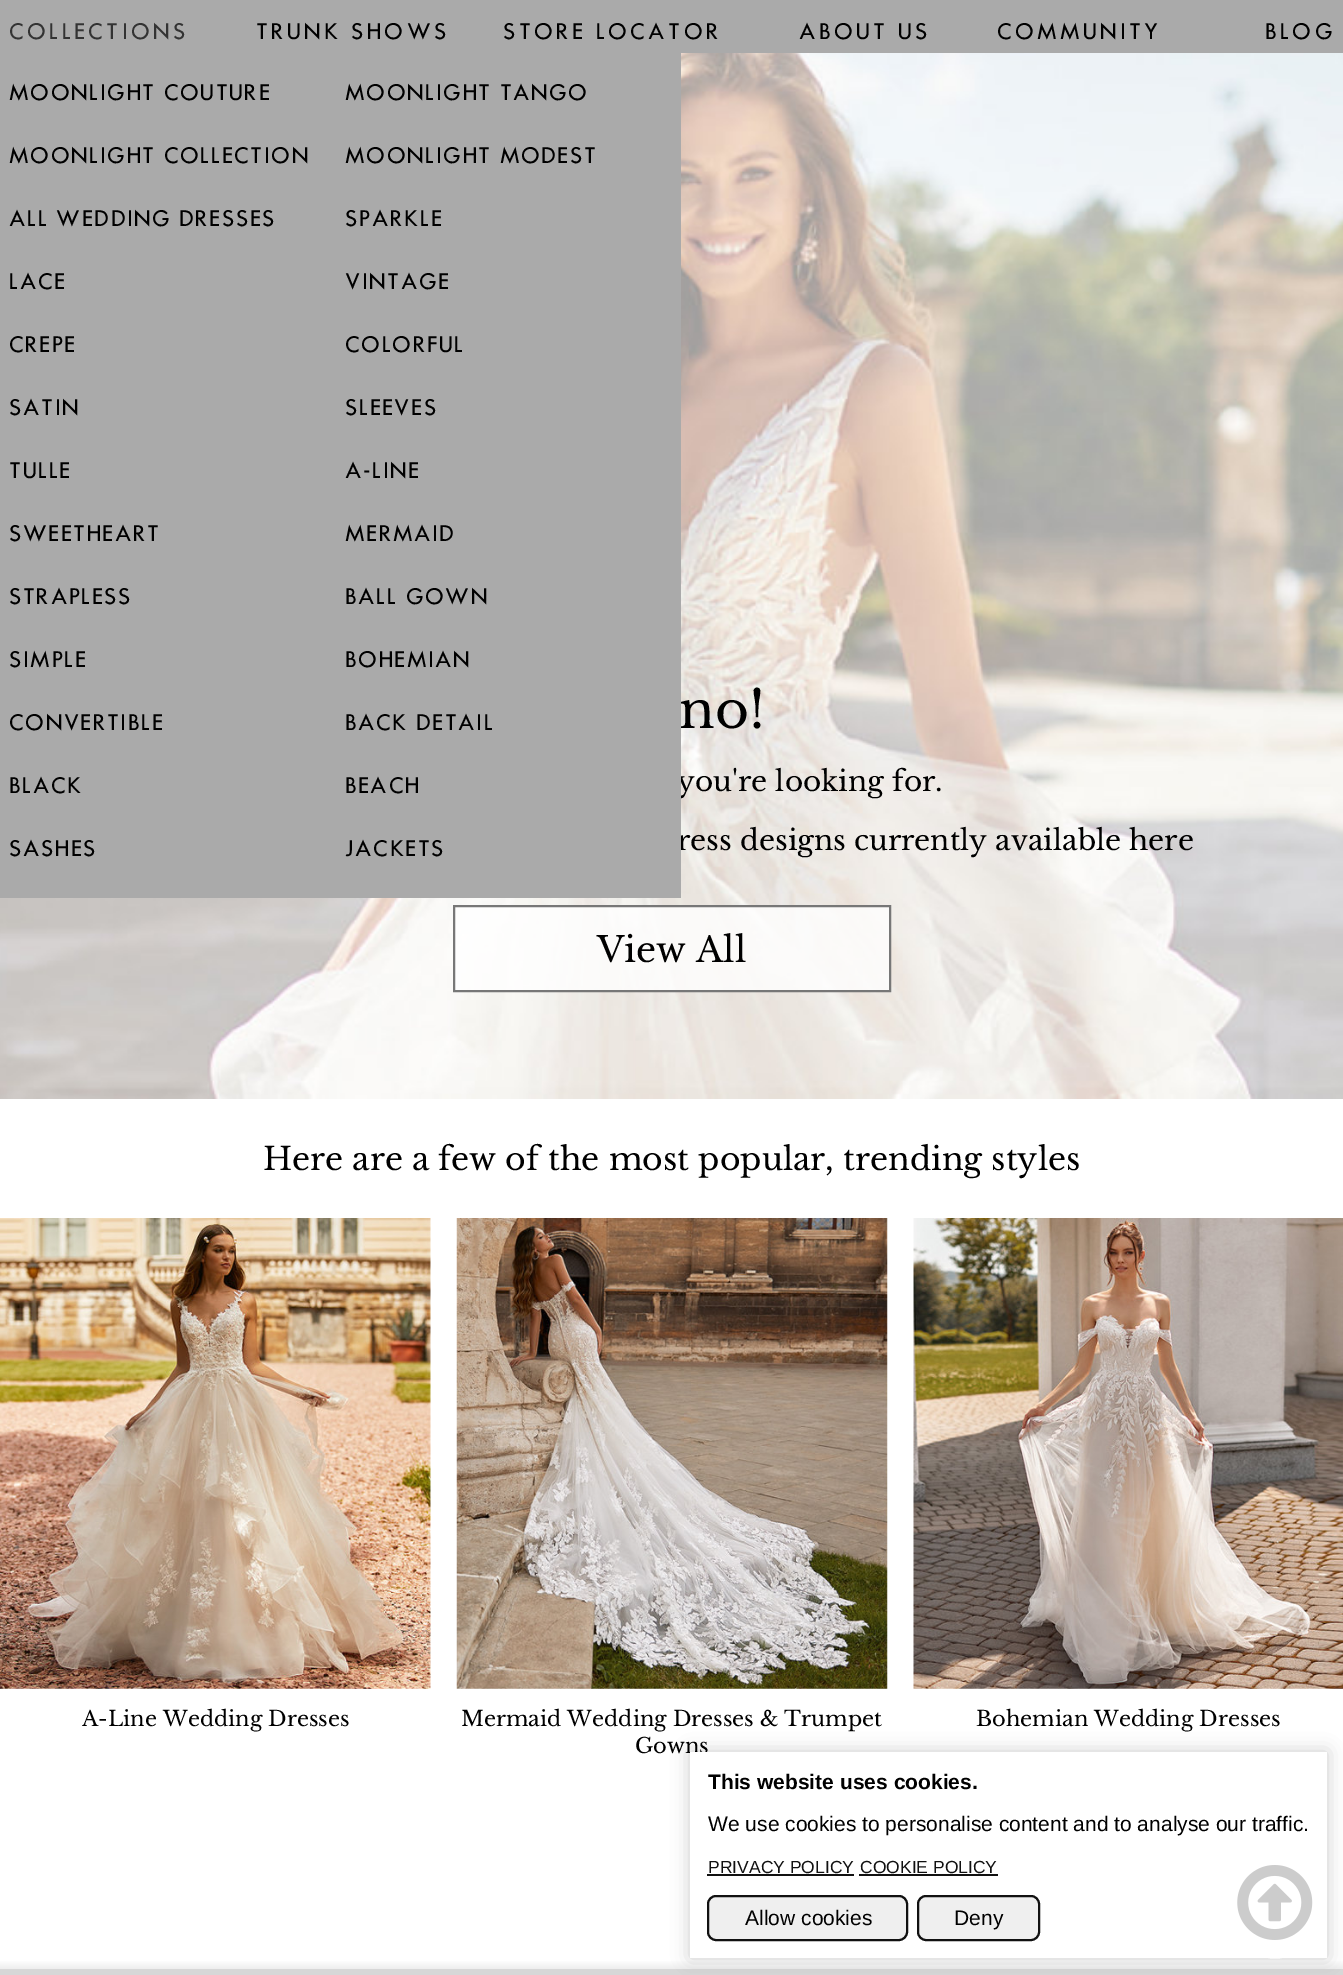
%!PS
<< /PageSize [1343 1975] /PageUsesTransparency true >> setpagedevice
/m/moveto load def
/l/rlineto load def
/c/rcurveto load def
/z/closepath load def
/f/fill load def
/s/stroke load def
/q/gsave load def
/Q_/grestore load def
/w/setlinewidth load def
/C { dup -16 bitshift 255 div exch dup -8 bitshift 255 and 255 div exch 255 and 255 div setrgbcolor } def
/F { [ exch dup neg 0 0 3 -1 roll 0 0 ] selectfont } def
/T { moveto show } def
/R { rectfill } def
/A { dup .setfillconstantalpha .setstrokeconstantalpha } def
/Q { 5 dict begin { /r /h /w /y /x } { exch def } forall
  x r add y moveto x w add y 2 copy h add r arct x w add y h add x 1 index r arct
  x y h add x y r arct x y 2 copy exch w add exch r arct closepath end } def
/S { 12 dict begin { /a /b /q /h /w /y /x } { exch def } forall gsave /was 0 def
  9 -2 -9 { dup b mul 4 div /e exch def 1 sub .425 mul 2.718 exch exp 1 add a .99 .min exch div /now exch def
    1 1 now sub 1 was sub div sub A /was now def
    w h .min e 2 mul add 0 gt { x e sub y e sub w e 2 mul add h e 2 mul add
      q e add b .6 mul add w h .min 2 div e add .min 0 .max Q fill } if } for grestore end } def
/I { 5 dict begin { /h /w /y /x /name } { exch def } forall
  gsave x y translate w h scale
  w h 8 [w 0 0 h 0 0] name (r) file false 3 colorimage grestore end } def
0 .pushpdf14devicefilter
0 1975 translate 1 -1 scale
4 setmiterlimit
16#FFFFFF C
0 0 1343 1975 R
16#AAAAAA C
0 0 1343 53 R
/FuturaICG-Regular 21 F
16#333333 C
9 39 m 3.5 0 (COLLECTIONS) ashow
(1.rgb) 0 53 1343 1046 I
/LibreBaskerville-Regular 52 F
16#000000 C
(no!) 679 728 T
/LibreBaskerville-Regular 28 F
(you're looking for.) 677 791 T
(ress designs currently available here) 677 850 T
16#AAAAAA C
0 53 681 845 R
/FuturaICG-Regular 21 F
16#000000 C
9 100 m 1.75 0 (MOONLIGHT COUTURE) ashow
345 100 m 1.75 0 (MOONLIGHT TANGO) ashow
9 163 m 1.75 0 (MOONLIGHT COLLECTION) ashow
345 163 m 1.75 0 (MOONLIGHT MODEST) ashow
9 226 m 1.75 0 (ALL WEDDING DRESSES) ashow
345 226 m 1.75 0 (SPARKLE) ashow
9 289 m 1.75 0 (LACE) ashow
345 289 m 1.75 0 (VINTAGE) ashow
9 352 m 1.75 0 (CREPE) ashow
345 352 m 1.75 0 (COLORFUL) ashow
9 415 m 1.75 0 (SATIN) ashow
345 415 m 1.75 0 (SLEEVES) ashow
9 478 m 1.75 0 (TULLE) ashow
345 478 m 1.75 0 (A-LINE) ashow
9 541 m 1.75 0 (SWEETHEART) ashow
345 541 m 1.75 0 (MERMAID) ashow
9 604 m 1.75 0 (STRAPLESS) ashow
345 604 m 1.75 0 (BALL GOWN) ashow
9 667 m 1.75 0 (SIMPLE) ashow
345 667 m 1.75 0 (BOHEMIAN) ashow
9 730 m 1.75 0 (CONVERTIBLE) ashow
345 730 m 1.75 0 (BACK DETAIL) ashow
9 793 m 1.75 0 (BLACK) ashow
345 793 m 1.75 0 (BEACH) ashow
9 856 m 1.75 0 (SASHES) ashow
345 856 m 1.75 0 (JACKETS) ashow
256 39 m 3.5 0 (TRUNK SHOWS) ashow
503 39 m 3.5 0 (STORE LOCATOR) ashow
799 39 m 3.5 0 (ABOUT US) ashow
997 39 m 3.5 0 (COMMUNITY) ashow
1265 39 m 3.5 0 (BLOG) ashow
0.8 A
16#FFFFFF C
454 906 m 436 0 l 0 85 l -436 0 l z f
1 A
16#777777 C
2 w
454 906 m 436 0 l 0 85 l -436 0 l z s
/LibreBaskerville-Regular 35 F
16#000000 C
(View All) 597 962 T
/LibreBaskerville-Regular 31.5 F
(Here are a few of the most popular, trending styles) 263 1170 T
(2.rgb) 0 1218 431 471 I
/LibreBaskerville-Regular 21 F
(A-Line Wedding Dresses) 82 1726 T
(3.rgb) 456 1218 432 471 I
(Mermaid Wedding Dresses & Trumpet) 461 1726 T
(Gowns) 635 1753 T
(4.rgb) 913 1218 430 471 I
(Bohemian Wedding Dresses) 976 1726 T
16#D7D7D7 C
0 1969 1343 6 R
q 0 1961 m 1343 0 l 0 8 l -1343 0 l z clip newpath
<< /ShadingType 2 /ColorSpace /DeviceRGB /Coords [672 1960 672 1969] /Extend [true true] /Function << /FunctionType 2 /Domain [0 1] /C0 [1 1 1] /C1 [.933 .933 .933] /N 1 >> >> shfill Q_
16#000000 C
690 1752 637 206 0 9 .2 S
16#FFFFFF C
690 1752 637 206 R
/LiberationSans-Bold 21 F
16#000000 C
(This website uses cookies.) 708 1789 T
/LiberationSans-Regular 21 F
(We use cookies to personalise content and to analyse our traffic.) 708 1831 T
/LiberationSans-Regular 17.5 F
16#111111 C
(PRIVACY POLICY) 708 1873 T
707 1874 147 2 R
(COOKIE POLICY) 860 1873 T
859 1874 139 2 R
16#EFEFEF C
708 1896 199 44 8 Q q f Q_
16#111111 C
s
/LiberationSans-Regular 21 F
16#000000 C
(Allow cookies) 745 1925 T
16#EFEFEF C
918 1896 121 44 8 Q q f Q_
16#111111 C
s
16#000000 C
(Deny) 954 1925 T
16#FFFFFF C
1275 1851.5 m 28.5 0 51.5 24 51.5 53.5 c 0 29.5 -23 53.5 -51.5 53.5 c -28.5 0 -51.5 -24 -51.5 -53.5 c 0 -29.5 23 -53.5 51.5 -53.5 c z f
(5.rgb) 1237 1865 76 75 I
.poppdf14devicefilter showpage
